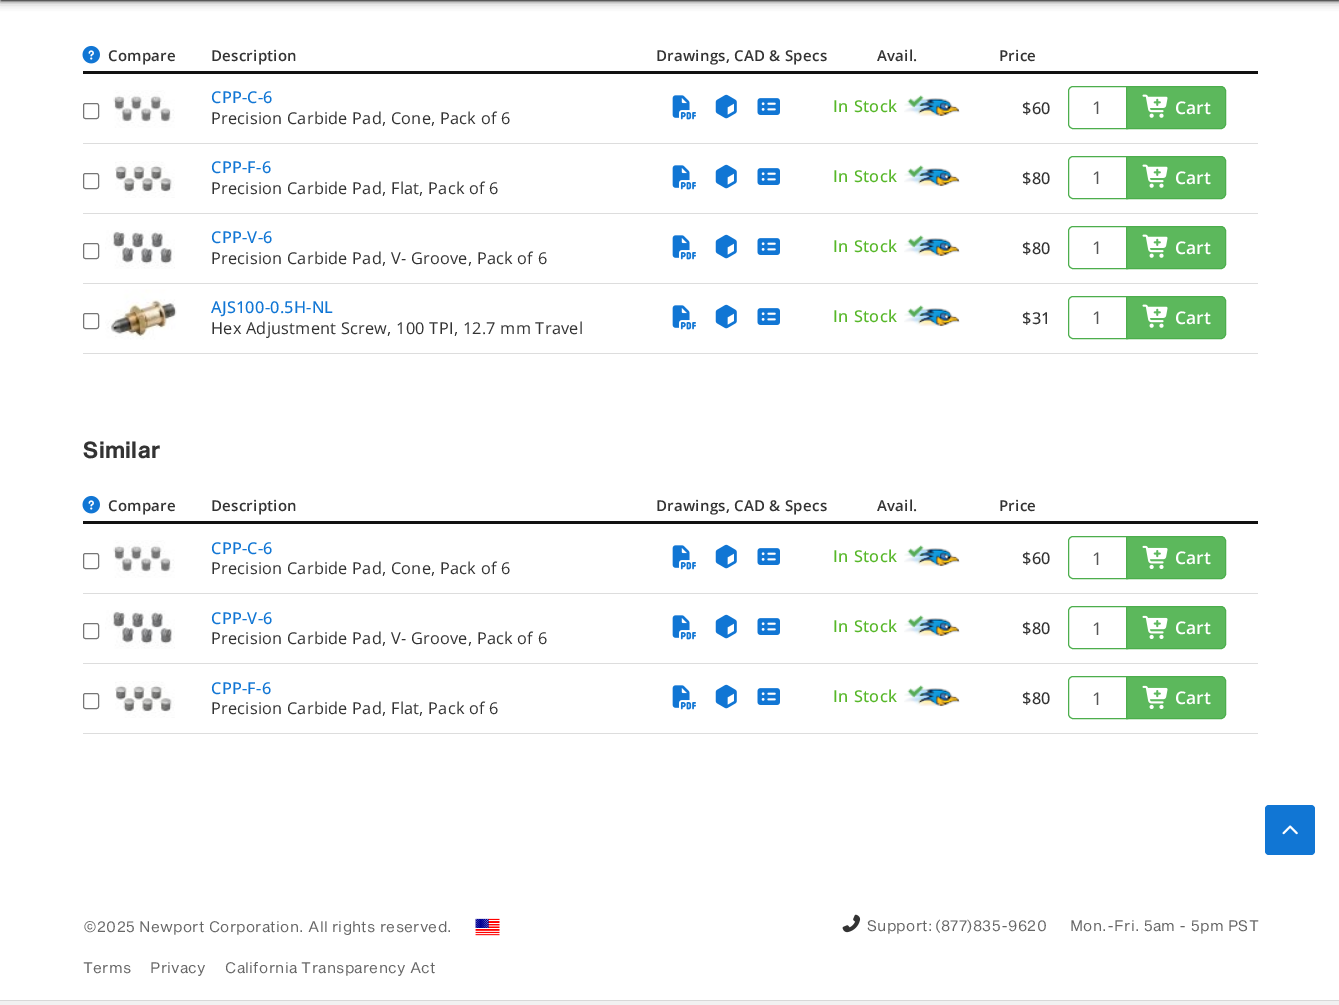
%!PS
<< /PageSize [1339 1005] /PageUsesTransparency true >> setpagedevice
/m/moveto load def
/l/rlineto load def
/c/rcurveto load def
/z/closepath load def
/f/fill load def
/s/stroke load def
/q/gsave load def
/Q_/grestore load def
/C { dup -16 bitshift 255 div exch dup -8 bitshift 255 and 255 div exch 255 and 255 div setrgbcolor } def
/F { [ exch dup neg 0 0 3 -1 roll 0 0 ] selectfont } def
/T { moveto show } def
/R { rectfill } def
/A { dup .setfillconstantalpha .setstrokeconstantalpha } def
/Q { 5 dict begin { /r /h /w /y /x } { exch def } forall
  x r add y moveto x w add y 2 copy h add r arct x w add y h add x 1 index r arct
  x y h add x y r arct x y 2 copy exch w add exch r arct closepath end } def
/S { 12 dict begin { /a /b /q /h /w /y /x } { exch def } forall gsave /was 0 def
  9 -2 -9 { dup b mul 4 div /e exch def 1 sub .425 mul 2.718 exch exp 1 add a .99 .min exch div /now exch def
    1 1 now sub 1 was sub div sub A /was now def
    w h .min e 2 mul add 0 gt { x e sub y e sub w e 2 mul add h e 2 mul add
      q e add b .6 mul add w h .min 2 div e add .min 0 .max Q fill } if } for grestore end } def
/I { 5 dict begin { /h /w /y /x /name } { exch def } forall
  gsave x y translate w h scale
  w h 8 [w 0 0 h 0 0] name (r) file false 3 colorimage grestore end } def
0 .pushpdf14devicefilter
0 1005 translate 1 -1 scale
4 setmiterlimit
16#FFFFFF C
0 0 1339 1005 R
16#5C5C5C C
0 -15 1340 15 0 5 1 S
16#333333 C
1 -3 1338 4 0 1 1 S
16#111111 C
83 71 1175 3 R
(1.rgb) 82 45 18 19 I
/OpenSans-SemiBold 15 F
16#333333 C
108 61 m .25 0 (Compare) ashow
211 61 m .25 0 (Description) ashow
656 61 m .25 0 (Drawings, CAD & Specs) ashow
877 61 m .25 0 (Avail.) ashow
999 61 m .25 0 (Price) ashow
(2.rgb) 113 90 62 38 I
/OpenSans-Medium 16.3 F
16#1176D4 C
211 103 m .25 0 (CPP-C-6) ashow
/OpenSans-Regular 16.3 F
16#333333 C
211 124 m .25 0 (Precision Carbide Pad, Cone, Pack of 6) ashow
(3.rgb) 672 95 24 25 I
(4.rgb) 715 94 22 25 I
(5.rgb) 757 98 23 17 I
/OpenSans-Medium 16.3 F
16#57B729 C
833 112 m 1 0 32 .25 0 (In Stock) awidthshow
(6.rgb) 904 95 56 22 I
16#333333 C
1022 114 m .25 0 ($60) ashow
16#4CAE4C C
1073 86.5 m 54.5 0 l 0 42 l -54.5 0 l -2.5 0 -4.5 -2 -4.5 -4.5 c 0 -33 l 0 -2.5 2 -4.5 4.5 -4.5 c z s
/OpenSans-Regular 17.5 F
16#555555 C
(1) 1092 114 T
16#5CB85C C
1126.5 86.5 m 94.5 0 l 2.5 0 4.5 2 4.5 4.5 c 0 33 l 0 2.5 -2 4.5 -4.5 4.5 c -94.5 0 l z q f Q_
16#4CAE4C C
s
(7.rgb) 1142 94 26 24 I
/OpenSans-SemiBold 17.5 F
16#FFFFFF C
(Cart) 1175 114 T
16#DDDDDD C
83 143 1175 1 R
16#767676 C
83.5 103.5 15 15 2 Q s
(8.rgb) 115 161 60 37 I
/OpenSans-Medium 16.3 F
16#1176D4 C
211 173 m .25 0 (CPP-F-6) ashow
/OpenSans-Regular 16.3 F
16#333333 C
211 194 m .25 0 (Precision Carbide Pad, Flat, Pack of 6) ashow
(3.rgb) 672 165 24 25 I
(4.rgb) 715 164 22 25 I
(5.rgb) 757 168 23 17 I
/OpenSans-Medium 16.3 F
16#57B729 C
833 182 m 1 0 32 .25 0 (In Stock) awidthshow
(6.rgb) 904 165 56 22 I
16#333333 C
1022 184 m .25 0 ($80) ashow
16#4CAE4C C
1073 156.5 m 54.5 0 l 0 42 l -54.5 0 l -2.5 0 -4.5 -2 -4.5 -4.5 c 0 -33 l 0 -2.5 2 -4.5 4.5 -4.5 c z s
/OpenSans-Regular 17.5 F
16#555555 C
(1) 1092 184 T
16#5CB85C C
1126.5 156.5 m 94.5 0 l 2.5 0 4.5 2 4.5 4.5 c 0 33 l 0 2.5 -2 4.5 -4.5 4.5 c -94.5 0 l z q f Q_
16#4CAE4C C
s
(7.rgb) 1142 164 26 24 I
/OpenSans-SemiBold 17.5 F
16#FFFFFF C
(Cart) 1175 184 T
16#DDDDDD C
83 213 1175 1 R
16#767676 C
83.5 173.5 15 15 2 Q s
(9.rgb) 105 230 70 39 I
/OpenSans-Medium 16.3 F
16#1176D4 C
211 243 m .25 0 (CPP-V-6) ashow
/OpenSans-Regular 16.3 F
16#333333 C
211 264 m .25 0 (Precision Carbide Pad, V- Groove, Pack of 6) ashow
(3.rgb) 672 235 24 25 I
(4.rgb) 715 234 22 25 I
(5.rgb) 757 238 23 17 I
/OpenSans-Medium 16.3 F
16#57B729 C
833 252 m 1 0 32 .25 0 (In Stock) awidthshow
(6.rgb) 904 235 56 22 I
16#333333 C
1022 254 m .25 0 ($80) ashow
16#4CAE4C C
1073 226.5 m 54.5 0 l 0 42 l -54.5 0 l -2.5 0 -4.5 -2 -4.5 -4.5 c 0 -33 l 0 -2.5 2 -4.5 4.5 -4.5 c z s
/OpenSans-Regular 17.5 F
16#555555 C
(1) 1092 254 T
16#5CB85C C
1126.5 226.5 m 94.5 0 l 2.5 0 4.5 2 4.5 4.5 c 0 33 l 0 2.5 -2 4.5 -4.5 4.5 c -94.5 0 l z q f Q_
16#4CAE4C C
s
(7.rgb) 1142 234 26 24 I
/OpenSans-SemiBold 17.5 F
16#FFFFFF C
(Cart) 1175 254 T
16#DDDDDD C
83 283 1175 1 R
16#767676 C
83.5 243.5 15 15 2 Q s
(10.rgb) 105 289 72 51 I
/OpenSans-Medium 16.3 F
16#1176D4 C
211 313 m .25 0 (AJS100-0.5H-NL) ashow
/OpenSans-Regular 16.3 F
16#333333 C
211 334 m .25 0 (Hex Adjustment Screw, 100 TPI, 12.7 mm Travel) ashow
(3.rgb) 672 305 24 25 I
(4.rgb) 715 304 22 25 I
(5.rgb) 757 308 23 17 I
/OpenSans-Medium 16.3 F
16#57B729 C
833 322 m 1 0 32 .25 0 (In Stock) awidthshow
(6.rgb) 904 305 56 22 I
16#333333 C
1022 324 m .25 0 ($31) ashow
16#4CAE4C C
1073 296.5 m 54.5 0 l 0 42 l -54.5 0 l -2.5 0 -4.5 -2 -4.5 -4.5 c 0 -33 l 0 -2.5 2 -4.5 4.5 -4.5 c z s
/OpenSans-Regular 17.5 F
16#555555 C
(1) 1092 324 T
16#5CB85C C
1126.5 296.5 m 94.5 0 l 2.5 0 4.5 2 4.5 4.5 c 0 33 l 0 2.5 -2 4.5 -4.5 4.5 c -94.5 0 l z q f Q_
16#4CAE4C C
s
(7.rgb) 1142 304 26 24 I
/OpenSans-SemiBold 17.5 F
16#FFFFFF C
(Cart) 1175 324 T
16#DDDDDD C
83 353 1175 1 R
16#767676 C
83.5 313.5 15 15 2 Q s
/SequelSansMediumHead-Bold 22 F
16#333333 C
83 458 m 1 0 (Similar) ashow
16#111111 C
83 521 1175 3 R
(1.rgb) 82 495 18 19 I
/OpenSans-SemiBold 15 F
16#333333 C
108 511 m .25 0 (Compare) ashow
211 511 m .25 0 (Description) ashow
656 511 m .25 0 (Drawings, CAD & Specs) ashow
877 511 m .25 0 (Avail.) ashow
999 511 m .25 0 (Price) ashow
(2.rgb) 113 540 62 38 I
/OpenSans-Medium 16.3 F
16#1176D4 C
211 554 m .25 0 (CPP-C-6) ashow
/OpenSans-Regular 16.3 F
16#333333 C
211 574 m .25 0 (Precision Carbide Pad, Cone, Pack of 6) ashow
(3.rgb) 672 545 24 25 I
(4.rgb) 715 544 22 25 I
(5.rgb) 757 548 23 17 I
/OpenSans-Medium 16.3 F
16#57B729 C
833 562 m 1 0 32 .25 0 (In Stock) awidthshow
(6.rgb) 904 545 56 22 I
16#333333 C
1022 564 m .25 0 ($60) ashow
16#4CAE4C C
1073 536.5 m 54.5 0 l 0 42 l -54.5 0 l -2.5 0 -4.5 -2 -4.5 -4.5 c 0 -33 l 0 -2.5 2 -4.5 4.5 -4.5 c z s
/OpenSans-Regular 17.5 F
16#555555 C
(1) 1092 565 T
16#5CB85C C
1126.5 536.5 m 94.5 0 l 2.5 0 4.5 2 4.5 4.5 c 0 33 l 0 2.5 -2 4.5 -4.5 4.5 c -94.5 0 l z q f Q_
16#4CAE4C C
s
(11.rgb) 1142 545 26 24 I
/OpenSans-SemiBold 17.5 F
16#FFFFFF C
(Cart) 1175 564 T
16#DDDDDD C
83 593 1175 1 R
16#767676 C
83.5 553.5 15 15 2 Q s
(9.rgb) 105 610 70 39 I
/OpenSans-Medium 16.3 F
16#1176D4 C
211 624 m .25 0 (CPP-V-6) ashow
/OpenSans-Regular 16.3 F
16#333333 C
211 644 m .25 0 (Precision Carbide Pad, V- Groove, Pack of 6) ashow
(3.rgb) 672 615 24 25 I
(4.rgb) 715 614 22 25 I
(5.rgb) 757 618 23 17 I
/OpenSans-Medium 16.3 F
16#57B729 C
833 632 m 1 0 32 .25 0 (In Stock) awidthshow
(6.rgb) 904 615 56 22 I
16#333333 C
1022 634 m .25 0 ($80) ashow
16#4CAE4C C
1073 606.5 m 54.5 0 l 0 42 l -54.5 0 l -2.5 0 -4.5 -2 -4.5 -4.5 c 0 -33 l 0 -2.5 2 -4.5 4.5 -4.5 c z s
/OpenSans-Regular 17.5 F
16#555555 C
(1) 1092 635 T
16#5CB85C C
1126.5 606.5 m 94.5 0 l 2.5 0 4.5 2 4.5 4.5 c 0 33 l 0 2.5 -2 4.5 -4.5 4.5 c -94.5 0 l z q f Q_
16#4CAE4C C
s
(11.rgb) 1142 615 26 24 I
/OpenSans-SemiBold 17.5 F
16#FFFFFF C
(Cart) 1175 634 T
16#DDDDDD C
83 663 1175 1 R
16#767676 C
83.5 623.5 15 15 2 Q s
(12.rgb) 115 681 60 37 I
/OpenSans-Medium 16.3 F
16#1176D4 C
211 694 m .25 0 (CPP-F-6) ashow
/OpenSans-Regular 16.3 F
16#333333 C
211 714 m .25 0 (Precision Carbide Pad, Flat, Pack of 6) ashow
(3.rgb) 672 685 24 25 I
(4.rgb) 715 684 22 25 I
(5.rgb) 757 688 23 17 I
/OpenSans-Medium 16.3 F
16#57B729 C
833 702 m 1 0 32 .25 0 (In Stock) awidthshow
(6.rgb) 904 685 56 22 I
16#333333 C
1022 704 m .25 0 ($80) ashow
16#4CAE4C C
1073 676.5 m 54.5 0 l 0 42 l -54.5 0 l -2.5 0 -4.5 -2 -4.5 -4.5 c 0 -33 l 0 -2.5 2 -4.5 4.5 -4.5 c z s
/OpenSans-Regular 17.5 F
16#555555 C
(1) 1092 705 T
16#5CB85C C
1126.5 676.5 m 94.5 0 l 2.5 0 4.5 2 4.5 4.5 c 0 33 l 0 2.5 -2 4.5 -4.5 4.5 c -94.5 0 l z q f Q_
16#4CAE4C C
s
(11.rgb) 1142 685 26 24 I
/OpenSans-SemiBold 17.5 F
16#FFFFFF C
(Cart) 1175 704 T
16#DDDDDD C
83 733 1175 1 R
16#767676 C
83.5 693.5 15 15 2 Q s
16#1176D4 C
1265 805 50 50 4 Q f
(13.rgb) 1282 825 16 10 I
/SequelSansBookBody-Regular 15 F
16#666666 C
83 932 m .25 0 (©2025 Newport Corporation. All rights reserved.) ashow
(14.rgb) 475 918 25 18 I
83 973 m .25 0 (Terms) ashow
150 973 m .25 0 (Privacy) ashow
225 973 m .25 0 (California Transparency Act) ashow
(15.rgb) 842 914 19 19 I
867 931 m .25 0 (Support:) ashow
935 931 m .25 0 (\(877\)835-9620) ashow
1070 931 m .25 0 (Mon.-Fri. 5am - 5pm PST) ashow
q 0 1001 m 1339 0 l 0 4 l -1339 0 l z clip newpath
<< /ShadingType 2 /ColorSpace /DeviceRGB /Coords [670 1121 670 1001] /Extend [true true] /Function << /FunctionType 2 /Domain [0 1] /C0 [1 1 1] /C1 [.945 .945 .945] /N 1 >> >> shfill Q_
16#D8D8D8 C
0 1000 1339 1 R
.poppdf14devicefilter showpage
